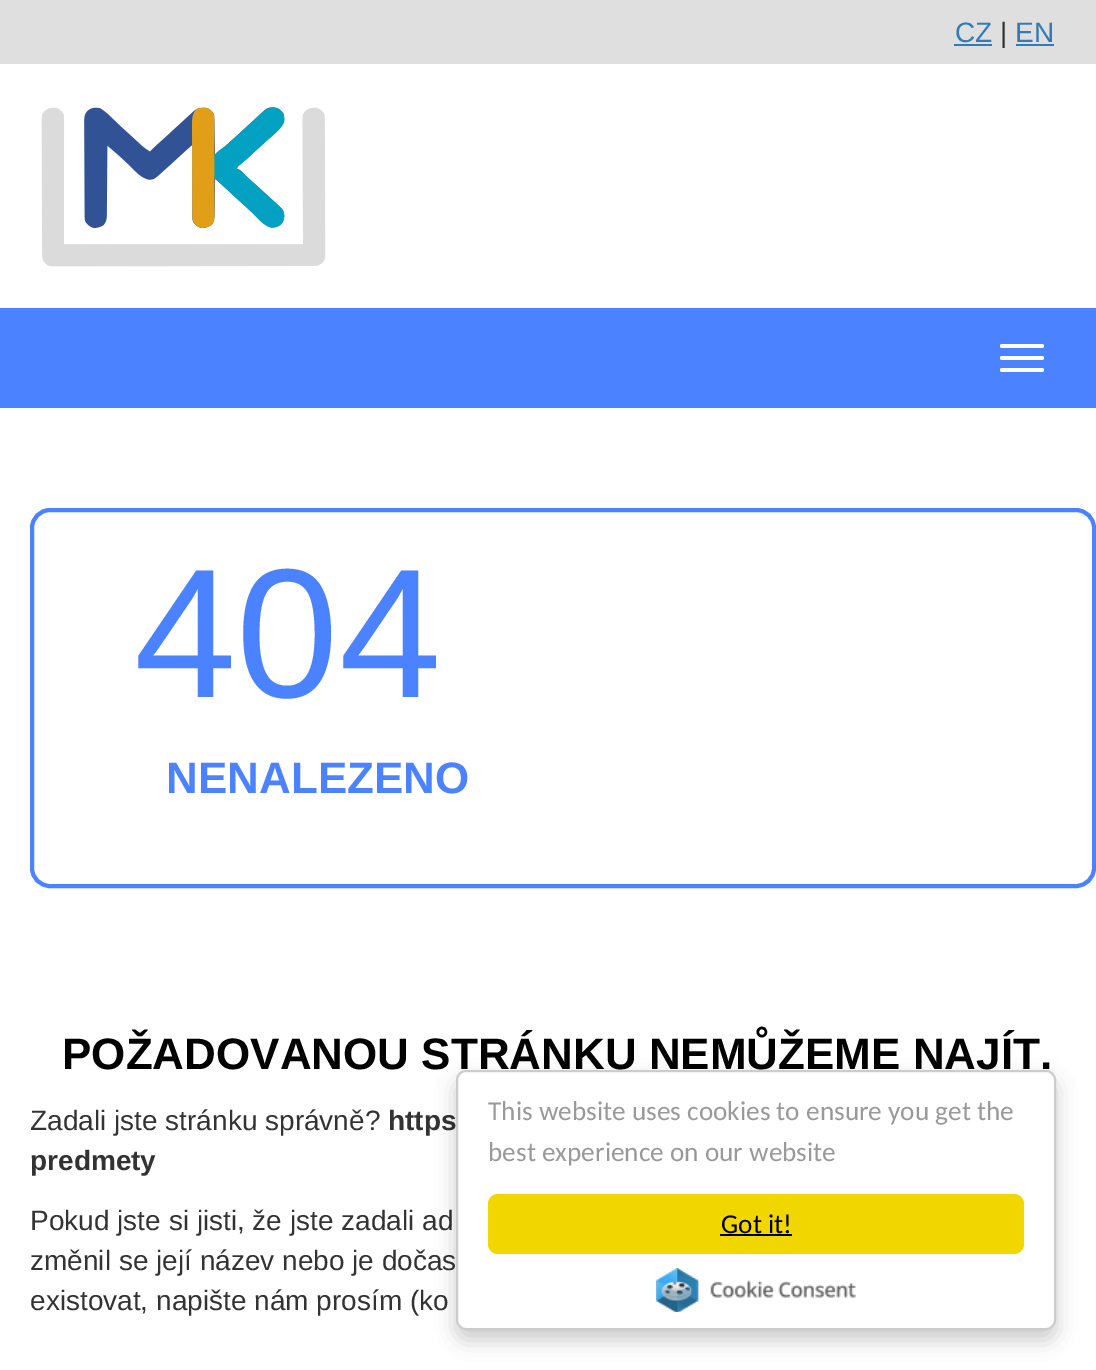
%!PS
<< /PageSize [1096 1370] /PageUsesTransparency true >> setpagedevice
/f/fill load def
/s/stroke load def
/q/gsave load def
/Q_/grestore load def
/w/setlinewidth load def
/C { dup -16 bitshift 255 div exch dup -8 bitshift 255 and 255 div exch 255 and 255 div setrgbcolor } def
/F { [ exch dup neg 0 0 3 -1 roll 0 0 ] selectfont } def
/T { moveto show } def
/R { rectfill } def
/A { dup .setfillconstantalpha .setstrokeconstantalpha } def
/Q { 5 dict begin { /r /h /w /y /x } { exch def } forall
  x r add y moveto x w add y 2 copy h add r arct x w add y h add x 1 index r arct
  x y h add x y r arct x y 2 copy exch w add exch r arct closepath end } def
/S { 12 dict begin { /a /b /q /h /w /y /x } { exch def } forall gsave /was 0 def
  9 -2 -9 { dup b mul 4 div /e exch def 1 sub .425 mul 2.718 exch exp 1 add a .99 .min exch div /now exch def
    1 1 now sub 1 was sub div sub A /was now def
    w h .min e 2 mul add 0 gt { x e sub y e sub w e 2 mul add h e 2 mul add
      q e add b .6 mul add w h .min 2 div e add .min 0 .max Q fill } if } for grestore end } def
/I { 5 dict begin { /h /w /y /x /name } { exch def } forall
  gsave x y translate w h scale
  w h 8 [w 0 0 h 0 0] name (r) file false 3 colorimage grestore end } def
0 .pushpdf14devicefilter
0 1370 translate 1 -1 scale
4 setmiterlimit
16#FFFFFF C
0 0 1096 1370 R
16#DFDFDF C
0 0 1096 64 R
/LiberationSans-Regular 28 F
16#337AB7 C
(CZ) 955 42 T
954 44 38 2 R
16#333333 C
(|) 1000 42 T
16#337AB7 C
(EN) 1015 42 T
1016 44 38 2 R
(1.rgb) 41 107 285 160 I
16#4B82FF C
0 308 1096 100 R
16#FFFFFF C
1000 344 44 4 2 Q f
1000 356 44 4 2 Q f
1000 368 44 4 2 Q f
16#4B82FF C
4 w
32 510 1062 376 18 Q s
/LiberationSans-Regular 184 F
(404) 134 697 T
/LiberationSans-Bold 44 F
(NENALEZENO) 166 793 T
16#000000 C
(POŽADOVANOU STRÁNKU NEMŮŽEME NAJÍT.) 62 1069 T
/LiberationSans-Regular 28 F
16#333333 C
(Zadali jste stránku správně?) 30 1130 T
/LiberationSans-Bold 28 F
(https) 388 1130 T
(predmety) 30 1170 T
/LiberationSans-Regular 28 F
(Pokud jste si jisti, že jste zadali ad) 30 1230 T
(změnil se její název nebo je dočas) 30 1270 T
(existovat, napište nám prosím \(ko) 30 1310 T
16#000000 C
456 1080 600 260 10 10 .2 S
16#FFFFFF C
457 1071 598 258 9 Q q f Q_
16#CCCCCC C
2 w
s
/Carlito-Regular 27.25 F
16#999999 C
(This website uses cookies to ensure you get the) 488 1120 T
(best experience on our website) 488 1161 T
16#F1D600 C
488 1194 536 60 10 Q f
16#000000 C
(Got it!) 721 1233 T
720 1234 72 2 R
(2.rgb) 656 1268 200 44 I
.poppdf14devicefilter showpage
